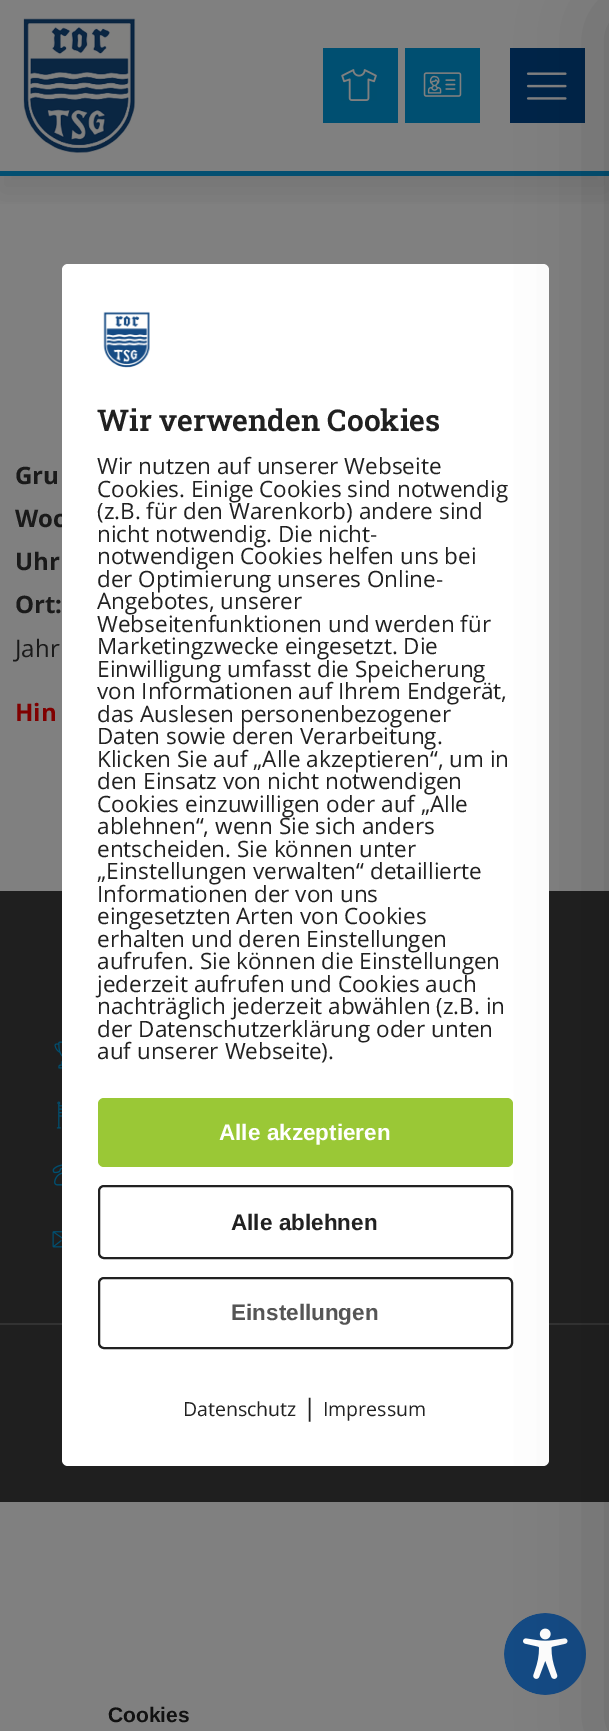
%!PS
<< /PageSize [609 1731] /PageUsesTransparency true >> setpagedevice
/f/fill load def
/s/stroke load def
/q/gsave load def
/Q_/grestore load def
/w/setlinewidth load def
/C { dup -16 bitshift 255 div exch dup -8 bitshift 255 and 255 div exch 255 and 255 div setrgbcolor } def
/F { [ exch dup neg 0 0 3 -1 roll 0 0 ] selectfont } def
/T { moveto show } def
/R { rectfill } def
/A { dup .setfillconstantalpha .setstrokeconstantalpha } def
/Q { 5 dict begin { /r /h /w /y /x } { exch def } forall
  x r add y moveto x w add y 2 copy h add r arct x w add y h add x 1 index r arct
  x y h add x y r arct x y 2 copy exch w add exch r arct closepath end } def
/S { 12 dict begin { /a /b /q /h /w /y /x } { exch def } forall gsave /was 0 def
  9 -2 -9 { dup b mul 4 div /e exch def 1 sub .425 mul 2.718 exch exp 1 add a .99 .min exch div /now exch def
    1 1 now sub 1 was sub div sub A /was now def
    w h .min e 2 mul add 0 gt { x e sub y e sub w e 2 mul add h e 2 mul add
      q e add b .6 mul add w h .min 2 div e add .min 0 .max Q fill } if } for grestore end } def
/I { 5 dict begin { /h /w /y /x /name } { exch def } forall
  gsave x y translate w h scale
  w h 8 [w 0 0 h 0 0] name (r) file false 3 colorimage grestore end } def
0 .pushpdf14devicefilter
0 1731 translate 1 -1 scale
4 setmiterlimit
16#808080 C
0 0 609 1731 R
q
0 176 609 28 rectclip
16#000000 C
0 15 609 176 0 15 .1 S
Q_
16#034F71 C
0 171 609 5 R
(1.rgb) 23 18 113 135 I
16#004F71 C
323 48 75 75 R
(2.rgb) 341 69 36 32 I
405 48 75 75 R
(3.rgb) 423 72 39 25 I
16#002449 C
510 48 75 75 R
(4.rgb) 526 72 41 28 I
/OpenSans-Bold 24 F
16#1A1A1A C
(Gru) 15 484 T
(Woc) 15 527 T
(Uhr) 15 570 T
(Ort:) 15 613 T
/OpenSans-Regular 24 F
(Jahr) 15 657 T
/OpenSans-Bold 24 F
16#800000 C
(Hin) 15 721 T
16#1F1F1F C
0 891 609 432 R
0 1325 609 177 R
16#323232 C
0 1323 609 2 R
16#FFFFFF C
62 264 487 1202 6 Q f
(5.rgb) 103 311 47 57 I
/RobotoSlab-SemiBold 30 F
16#212121 C
(Wir verwenden Cookies) 97 431 T
/OpenSans-Regular 22.5 F
(Wir nutzen auf unserer Webseite) 97 474 T
(Cookies. Einige Cookies sind notwendig) 97 497 T
(\(z.B. für den Warenkorb\) andere sind) 97 519 T
(nicht notwendig. Die nicht-) 97 542 T
(notwendigen Cookies helfen uns bei) 97 564 T
(der Optimierung unseres Online-) 97 587 T
(Angebotes, unserer) 97 609 T
(Webseitenfunktionen und werden für) 97 632 T
(Marketingzwecke eingesetzt. Die) 97 654 T
(Einwilligung umfasst die Speicherung) 97 677 T
(von Informationen auf Ihrem Endgerät,) 97 699 T
(das Auslesen personenbezogener) 97 722 T
(Daten sowie deren Verarbeitung.) 97 744 T
(Klicken Sie auf „Alle akzeptieren“, um in) 97 767 T
(den Einsatz von nicht notwendigen) 97 789 T
(Cookies einzuwilligen oder auf „Alle) 97 812 T
(ablehnen“, wenn Sie sich anders) 97 834 T
(entscheiden. Sie können unter) 97 857 T
(„Einstellungen verwalten“ detaillierte) 97 879 T
(Informationen der von uns) 97 902 T
(eingesetzten Arten von Cookies) 97 924 T
(erhalten und deren Einstellungen) 97 947 T
(aufrufen. Sie können die Einstellungen) 97 969 T
(jederzeit aufrufen und Cookies auch) 97 992 T
(nachträglich jederzeit abwählen \(z.B. in) 97 1014 T
(der Datenschutzerklärung oder unten) 97 1037 T
(auf unserer Webseite\).) 97 1059 T
16#9AC836 C
98 1098 415 69 6 Q f
/LiberationSans-Bold 22.5 F
16#FFFFFF C
(Alle akzeptieren) 219 1140 T
16#212121 C
2 w
99 1186 413 72 5 Q s
(Alle ablehnen) 231 1230 T
99 1278 413 70 5 Q s
16#555555 C
(Einstellungen) 231 1320 T
/OpenSans-Regular 19.5 F
16#212121 C
(Datenschutz) 183 1416 T
/OpenSans-Regular 24 F
(|) 303 1416 T
/OpenSans-Regular 19.5 F
(Impressum) 323 1416 T
(10.rgb) 504 1613 82 82 I
16#000000 C
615 15 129 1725 0 45 .2 S
(6.rgb) 54 1041 8 28 I
(7.rgb) 56 1101 6 28 I
(8.rgb) 52 1164 10 22 I
(9.rgb) 52 1231 10 17 I
/LiberationSans-Bold 21 F
16#111111 C
(Cookies) 108 1722 T
.poppdf14devicefilter showpage
